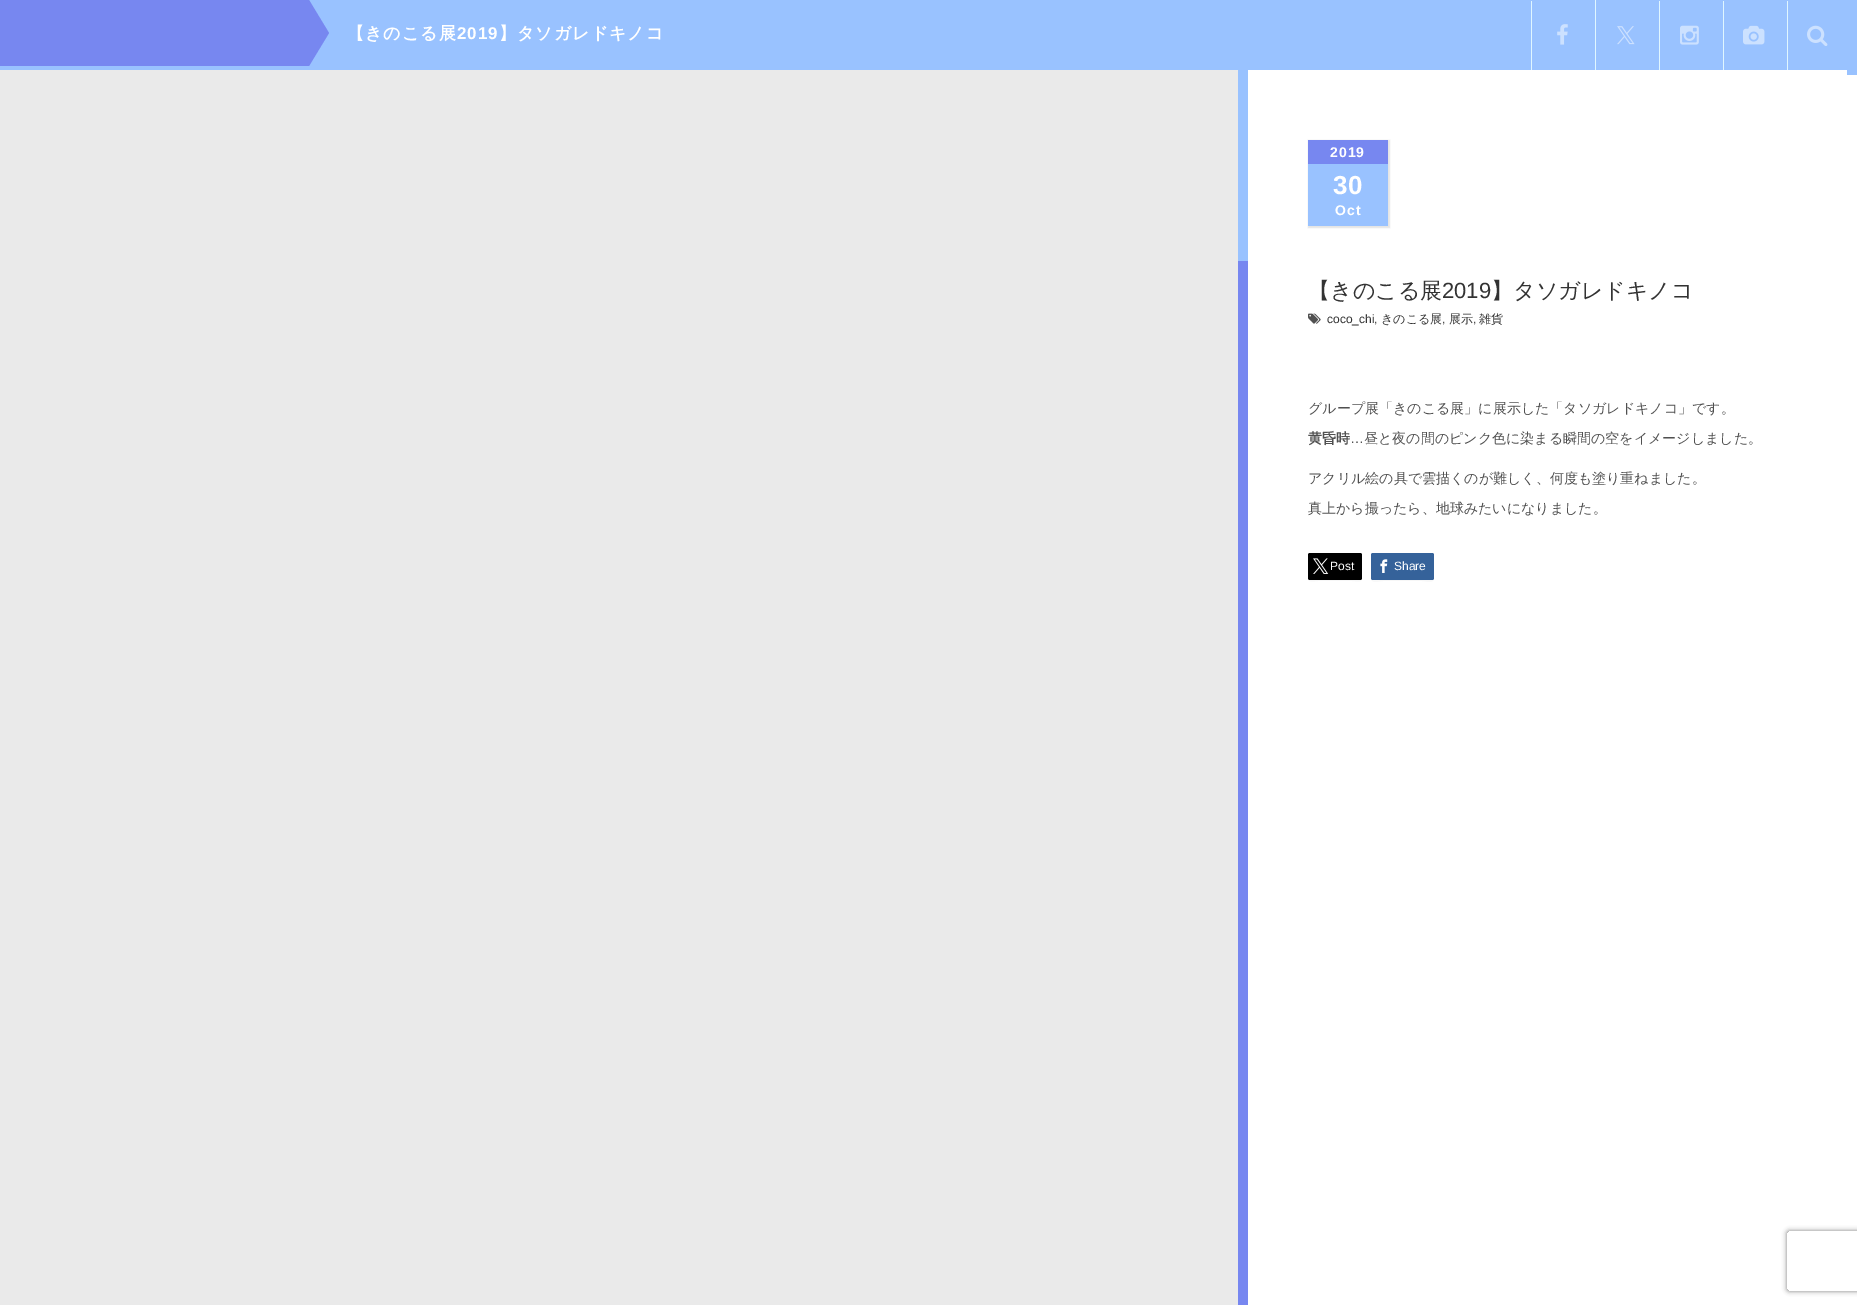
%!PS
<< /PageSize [1857 1305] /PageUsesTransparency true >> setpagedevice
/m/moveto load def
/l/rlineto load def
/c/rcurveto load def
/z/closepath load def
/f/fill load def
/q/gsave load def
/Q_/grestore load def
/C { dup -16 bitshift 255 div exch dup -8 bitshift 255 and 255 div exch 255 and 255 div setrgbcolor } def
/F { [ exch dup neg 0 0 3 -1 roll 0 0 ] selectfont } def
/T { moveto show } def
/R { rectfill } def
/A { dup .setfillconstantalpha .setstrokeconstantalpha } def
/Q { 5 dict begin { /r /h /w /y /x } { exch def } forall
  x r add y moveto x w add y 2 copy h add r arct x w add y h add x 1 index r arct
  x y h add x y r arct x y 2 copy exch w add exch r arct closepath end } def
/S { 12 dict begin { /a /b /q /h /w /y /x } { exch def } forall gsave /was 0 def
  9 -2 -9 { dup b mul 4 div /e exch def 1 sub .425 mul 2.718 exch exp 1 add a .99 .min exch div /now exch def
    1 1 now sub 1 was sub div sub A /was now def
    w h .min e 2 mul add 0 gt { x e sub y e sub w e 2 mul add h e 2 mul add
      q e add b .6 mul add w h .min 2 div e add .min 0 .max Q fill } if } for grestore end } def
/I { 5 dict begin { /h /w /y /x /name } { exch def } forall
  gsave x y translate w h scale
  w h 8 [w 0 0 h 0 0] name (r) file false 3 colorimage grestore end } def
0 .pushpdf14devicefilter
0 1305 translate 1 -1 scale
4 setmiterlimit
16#EAEAEA C
0 0 1857 1305 R
16#99C2FF C
0 0 1847 70 R
16#7787F0 C
0 0 309 66 R
309 66 m 0 -66 l 20 33 l z f
/WenQuanYiZenHei-Bold 17 F
16#FFFFFF C
347 39 m 1 0 (【きのこる展) ashow
/LiberationSans-Bold 17 F
457 39 m 1 0 (2019) ashow
/WenQuanYiZenHei-Bold 17 F
499 39 m 1 0 (】タソガレドキノコ) ashow
16#E0F6FF C
1531 1 1 69 R
(1.rgb) 1557 24 11 21 I
1595 0 1 70 R
(2.rgb) 1617 26 18 19 I
1659 1 1 69 R
(3.rgb) 1680 25 19 20 I
1723 1 1 69 R
(4.rgb) 1743 25 22 20 I
1787 1 1 69 R
(5.rgb) 1807 25 21 21 I
16#FFFFFF C
1248 70 609 1235 R
16#99C2FF C
1847 0 10 75 R
1238 70 10 191 R
16#7787F0 C
1238 261 10 1044 R
16#000000 C
1308 140 82 88 0 .5 .1 S
16#99C2FF C
1308 164 80 62 R
16#7787F0 C
1308 140 80 24 R
/LiberationSans-Bold 14 F
16#FFFFFF C
1330 157 m 1 0 (2019) ashow
/LiberationSans-Bold 26 F
1333 194 m 1 0 (30) ashow
/LiberationSans-Bold 14 F
1335 215 m 1 0 (Oct) ashow
/WenQuanYiZenHei-Medium 22 F
16#333333 C
(【きのこる展) 1308 298 T
/LiberationSans-Regular 22 F
(2019) 1442 298 T
/WenQuanYiZenHei-Medium 22 F
(】タソガレドキノコ) 1491 298 T
(6.rgb) 1308 313 13 11 I
/LiberationSans-Regular 12 F
(coco_chi) 1327 323 T
16#505050 C
(,) 1374 323 T
/WenQuanYiZenHei-Medium 12 F
16#333333 C
(きのこる展) 1381 323 T
/LiberationSans-Regular 12 F
16#505050 C
(,) 1442 323 T
/WenQuanYiZenHei-Medium 12 F
16#333333 C
(展示) 1449 323 T
/LiberationSans-Regular 12 F
16#505050 C
(,) 1473 323 T
/WenQuanYiZenHei-Medium 12 F
16#333333 C
(雑貨) 1479 323 T
/WenQuanYiZenHei-Medium 14 F
16#505050 C
(グループ展「きのこる展」に展示した「タソガレドキノコ」です。) 1308 413 T
/WenQuanYiZenHei-Bold 14 F
(黄昏時) 1308 443 T
/LiberationSans-Regular 14 F
(…) 1350 443 T
/WenQuanYiZenHei-Medium 14 F
(昼と夜の間のピンク色に染まる瞬間の空をイメージしました。) 1364 443 T
(アクリル絵の具で雲描くのが難しく、何度も塗り重ねました。) 1308 483 T
(真上から撮ったら、地球みたいになりました。) 1308 513 T
16#F7F7F7 C
1308 578 m 0 5 6 3 10 3 c 34 0 l 4 0 10 2 10 -3 c -1 2 l -52 0 l z f
16#000000 C
1308 553 54 27 2 Q f
(7.rgb) 1313 558 16 16 I
/LiberationSans-Regular 12 F
16#FFFFFF C
(Post) 1330 570 T
16#F7F7F7 C
1371 578 m 0 6 8 3 12 3 c 39 0 l 4 0 12 3 12 -3 c -1 2 l -50 0 l -4 0 -12 2 -12 -2 c z f
16#35629A C
1371 553 63 27 2 Q f
(8.rgb) 1380 559 8 14 I
16#FFFFFF C
(Share) 1394 570 T
q
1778 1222 m 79 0 l 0 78 l -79 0 l z 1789 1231 m 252 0 l 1 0 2 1 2 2 c 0 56 l 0 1 -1 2 -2 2 c -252 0 l -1 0 -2 -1 -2 -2 c 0 -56 l 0 -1 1 -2 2 -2 c z eoclip newpath
16#808080 C
1787 1231 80 60 2 2.5 1 S
Q_
.poppdf14devicefilter showpage
